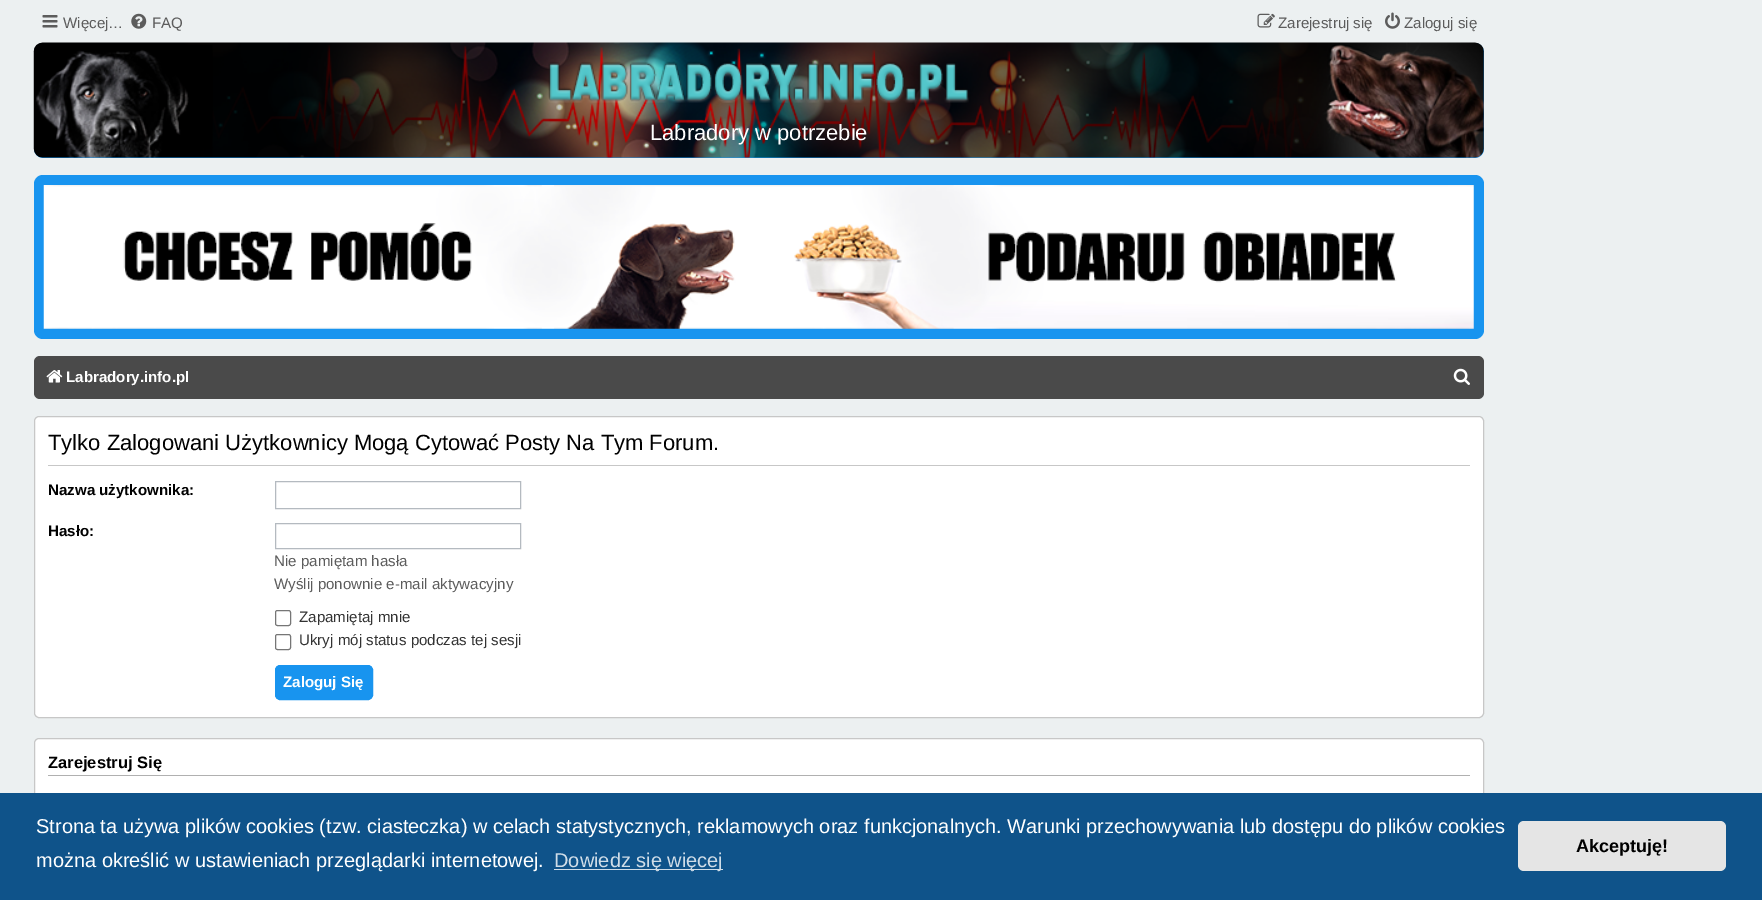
%!PS
<< /PageSize [1762 900] >> setpagedevice
/f/fill load def
/s/stroke load def
/q/gsave load def
/Q_/grestore load def
/C { dup -16 bitshift 255 div exch dup -8 bitshift 255 and 255 div exch 255 and 255 div setrgbcolor } def
/F { [ exch dup neg 0 0 3 -1 roll 0 0 ] selectfont } def
/T { moveto show } def
/R { rectfill } def
/Q { 5 dict begin { /r /h /w /y /x } { exch def } forall
  x r add y moveto x w add y 2 copy h add r arct x w add y h add x 1 index r arct
  x y h add x y r arct x y 2 copy exch w add exch r arct closepath end } def
/I { 5 dict begin { /h /w /y /x /name } { exch def } forall
  gsave x y translate w h scale
  w h 8 [w 0 0 h 0 0] name (r) file false 3 colorimage grestore end } def
0 900 translate 1 -1 scale
4 setmiterlimit
16#ECF0F1 C
0 0 1762 900 R
(1.rgb) 42 15 16 13 I
/LiberationSans-Regular 15.1 F
16#5C5C5C C
(Więcej…) 63 28 T
(2.rgb) 131 13 16 16 I
(FAQ) 152 28 T
(3.rgb) 1257 13 18 15 I
(Zarejestruj się) 1278 28 T
(4.rgb) 1385 12 15 17 I
(Zaloguj się) 1404 28 T
16#1894EF C
34 43 1450 115 9 Q f
(5.rgb) 33 42 1451 116 I
(6.rgb) 548 61 421 42 I
/LiberationSans-Regular 22 F
16#FFFFFF C
(Labradory w potrzebie) 650 140 T
16#1894EF C
34 175 1450 164 9 Q f
(7.rgb) 43 185 1431 144 I
16#4A4A4A C
34 356 1450 43 6 Q f
(8.rgb) 46 370 17 13 I
/LiberationSans-Bold 15.1 F
16#FFFFFF C
(Labradory.info.pl) 66 382 T
(9.rgb) 1453 368 17 17 I
34.5 416.5 1449 301 4.5 Q q f Q_
16#C7C7C7 C
s
48 465 1422 1 R
/LiberationSans-Regular 22 F
16#000000 C
(Tylko Zalogowani Użytkownicy Mogą Cytować Posty Na Tym Forum.) 48 450 T
/LiberationSans-Bold 15.1 F
(Nazwa użytkownika:) 48 495 T
16#B4BAC0 C
275.5 481.5 245 27 rectstroke
16#000000 C
(Hasło:) 48 536 T
16#B4BAC0 C
275.5 523.5 245 25 rectstroke
/LiberationSans-Regular 15.1 F
16#5C5C5C C
(Nie pamiętam hasła) 274 566 T
(Wyślij ponownie e-mail aktywacyjny) 274 589 T
16#767676 C
275.5 610.5 15 15 2 Q s
16#333333 C
(Zapamiętaj mnie) 299 622 T
16#767676 C
275.5 634.5 15 15 2 Q s
16#333333 C
(Ukryj mój status podczas tej sesji) 299 645 T
16#1894EF C
275.5 665.5 97 34 4.5 Q q f Q_
s
/LiberationSans-Bold 15.1 F
16#FFFFFF C
(Zaloguj Się) 283 687 T
34.5 738.5 1449 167 4.5 Q q f Q_
16#C7C7C7 C
s
16#B0B0B0 C
48 775 1422 1 R
/LiberationSans-Bold 16.5 F
16#000000 C
(Zarejestruj Się) 48 768 T
16#0F538A C
0 793 1762 107 R
/LiberationSans-Regular 20 F
16#FFFFFF C
(Strona ta używa plików cookies \(tzw. ciasteczka\) w celach statystycznych, reklamowych oraz funkcjonalnych. Warunki przechowywania lub dostępu do plików cookies) 36 833 T
(można określić w ustawieniach przeglądarki internetowej.) 36 867 T
16#CFDDE8 C
554 869 169 1 R
(Dowiedz się więcej) 554 867 T
16#E5E5E5 C
1518 821 208 50 6 Q f
/LiberationSans-Bold 18 F
16#000000 C
(Akceptuję!) 1576 852 T
showpage
